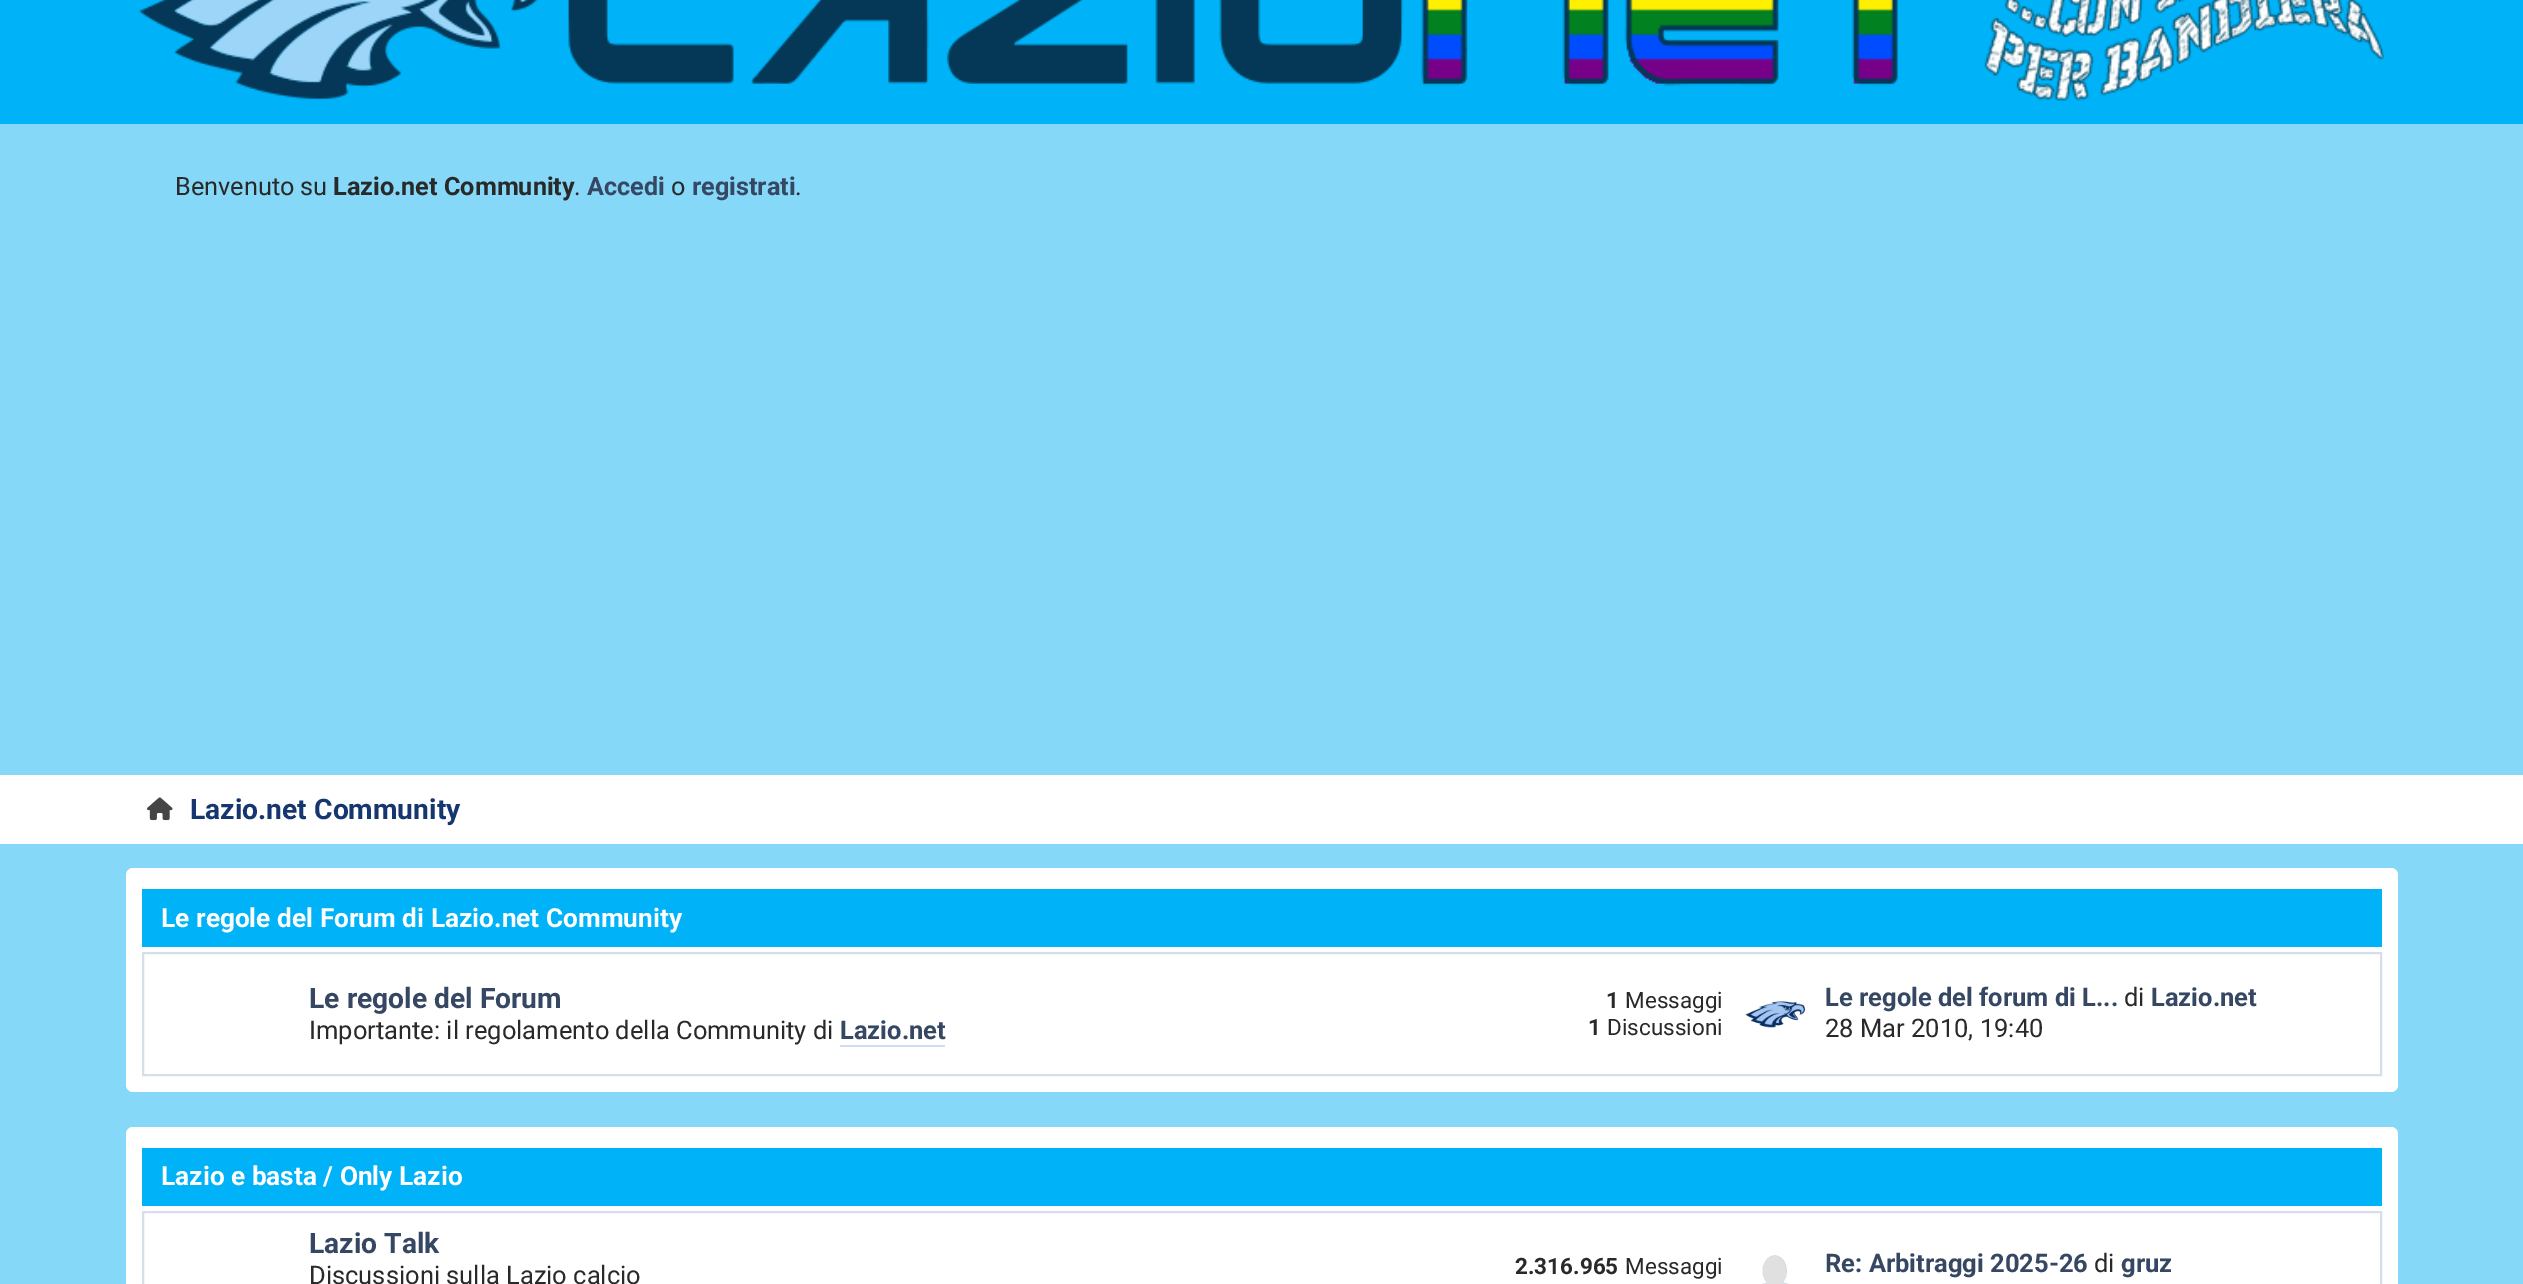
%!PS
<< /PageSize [2523 1284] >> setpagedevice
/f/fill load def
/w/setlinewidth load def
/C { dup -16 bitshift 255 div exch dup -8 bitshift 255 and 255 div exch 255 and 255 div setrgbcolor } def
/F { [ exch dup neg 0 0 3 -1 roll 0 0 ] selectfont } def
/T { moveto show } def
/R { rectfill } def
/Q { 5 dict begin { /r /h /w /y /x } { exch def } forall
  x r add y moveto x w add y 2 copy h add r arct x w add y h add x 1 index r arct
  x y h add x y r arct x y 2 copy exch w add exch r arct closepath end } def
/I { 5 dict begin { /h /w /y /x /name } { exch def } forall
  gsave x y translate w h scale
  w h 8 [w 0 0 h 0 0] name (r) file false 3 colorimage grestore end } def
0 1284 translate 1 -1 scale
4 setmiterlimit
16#85D8F8 C
0 0 2523 1284 R
16#00B3F8 C
0 0 2523 124 R
(1.rgb) 139 0 2246 101 I
/Roboto-Regular 25.25 F
16#292929 C
(Benvenuto su) 175 195 T
/Roboto-Bold 25.25 F
(Lazio.net Community) 333 195 T
/Roboto-Regular 25.25 F
(.) 574 195 T
/Roboto-Bold 25.25 F
16#364763 C
(Accedi) 587 195 T
/Roboto-Regular 25.25 F
16#292929 C
(o) 671 195 T
/Roboto-Bold 25.25 F
16#364763 C
(registrati) 692 195 T
/Roboto-Regular 25.25 F
16#292929 C
(.) 795 195 T
16#FFFFFF C
0 775 2523 69 R
(2.rgb) 147 797 26 24 I
/Roboto-Bold 28.25 F
16#15366F C
(Lazio.net Community) 190 819 T
16#FFFFFF C
126 868 2272 224 7 Q f
16#00B3F8 C
142 889 2240 58 R
/Roboto-Bold 26.25 F
16#FFFFFF C
(Le regole del Forum di Lazio.net Community) 161 927 T
16#D6DEEB C
2 w
143 953 2238 122 rectstroke
/Roboto-Bold 28.25 F
16#364763 C
(Le regole del Forum) 309 1008 T
/Roboto-Regular 25.5 F
16#292929 C
(Importante: il regolamento della Community di) 309 1039 T
/Roboto-Bold 25.5 F
16#364763 C
(Lazio.net) 840 1039 T
16#D0DCF1 C
840 1045 105 2 R
/Roboto-Bold 22.5 F
16#292929 C
(1) 1606 1008 T
/Roboto-Regular 22.5 F
(Messaggi) 1625 1008 T
/Roboto-Bold 22.5 F
(1) 1588 1035 T
/Roboto-Regular 22.5 F
(Discussioni) 1607 1035 T
(3.rgb) 1745 1001 61 27 I
/Roboto-Bold 25.5 F
16#364763 C
(Le regole del forum di L...) 1825 1006 T
/Roboto-Regular 25.5 F
16#292929 C
(di) 2124 1006 T
/Roboto-Bold 25.5 F
16#364763 C
(Lazio.net) 2151 1006 T
/Roboto-Regular 25.5 F
16#292929 C
(28 Mar 2010, 19:40) 1825 1037 T
16#FFFFFF C
126 1127 2272 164 7 Q f
16#00B3F8 C
142 1148 2240 58 R
/Roboto-Bold 26.25 F
16#FFFFFF C
(Lazio e basta / Only Lazio) 161 1185 T
16#D6DEEB C
143 1212 2238 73 rectstroke
/Roboto-Bold 28.25 F
16#364763 C
(Lazio Talk) 309 1253 T
/Roboto-Regular 25.5 F
16#292929 C
(Discussioni sulla Lazio calcio) 309 1284 T
/Roboto-Bold 22.5 F
(2.316.965) 1515 1274 T
/Roboto-Regular 22.5 F
(Messaggi) 1625 1274 T
(4.rgb) 1762 1255 27 29 I
/Roboto-Bold 25.5 F
16#364763 C
(Re: Arbitraggi 2025-26) 1825 1272 T
/Roboto-Regular 25.5 F
16#292929 C
(di) 2094 1272 T
/Roboto-Bold 25.5 F
16#364763 C
(gruz) 2121 1272 T
showpage
